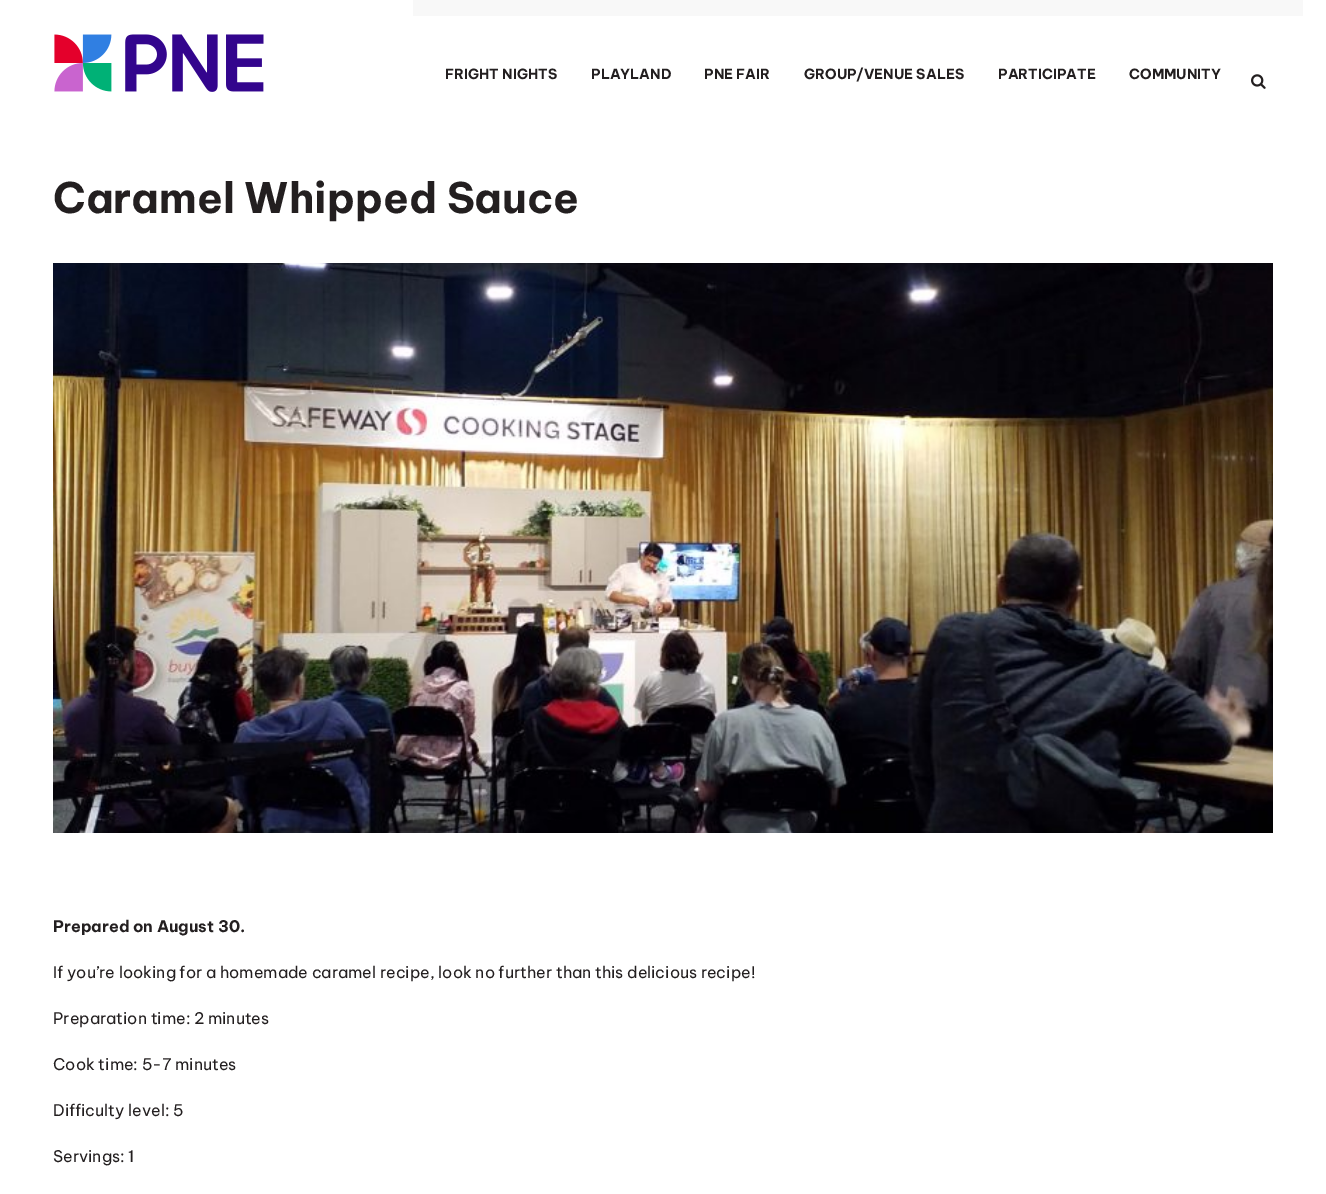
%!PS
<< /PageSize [1326 1194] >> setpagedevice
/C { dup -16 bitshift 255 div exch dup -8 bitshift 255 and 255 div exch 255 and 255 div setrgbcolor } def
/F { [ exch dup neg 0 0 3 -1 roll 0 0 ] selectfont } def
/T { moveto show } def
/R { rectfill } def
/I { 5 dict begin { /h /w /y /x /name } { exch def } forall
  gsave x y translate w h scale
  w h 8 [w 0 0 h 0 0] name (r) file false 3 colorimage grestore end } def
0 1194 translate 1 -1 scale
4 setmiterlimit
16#FFFFFF C
0 0 1326 1194 R
16#F8F8F8 C
413 0 890 16 R
(1.rgb) 54 34 210 58 I
/BeVietnamPro-Bold 14 F
16#231F20 C
(FRIGHT NIGHTS) 445 79 T
(PLAYLAND) 591 79 T
(PNE FAIR) 704 79 T
(GROUP/VENUE SALES) 804 79 T
(PARTICIPATE) 998 79 T
(COMMUNITY) 1129 79 T
(2.rgb) 1251 74 15 15 I
/BeVietnamPro-Bold 42 F
(Caramel Whipped Sauce) 53 213 T
(3.rgb) 53 263 1220 570 I
/BeVietnamPro-Bold 16 F
(Prepared on August 30.) 53 932 T
/BeVietnamPro-Regular 16 F
(If you’re looking for a homemade caramel recipe, look no further than this delicious recipe!) 53 978 T
(Preparation time: 2 minutes) 53 1024 T
(Cook time: 5-7 minutes) 53 1070 T
(Difficulty level: 5) 53 1116 T
(Servings: 1) 53 1162 T
showpage
